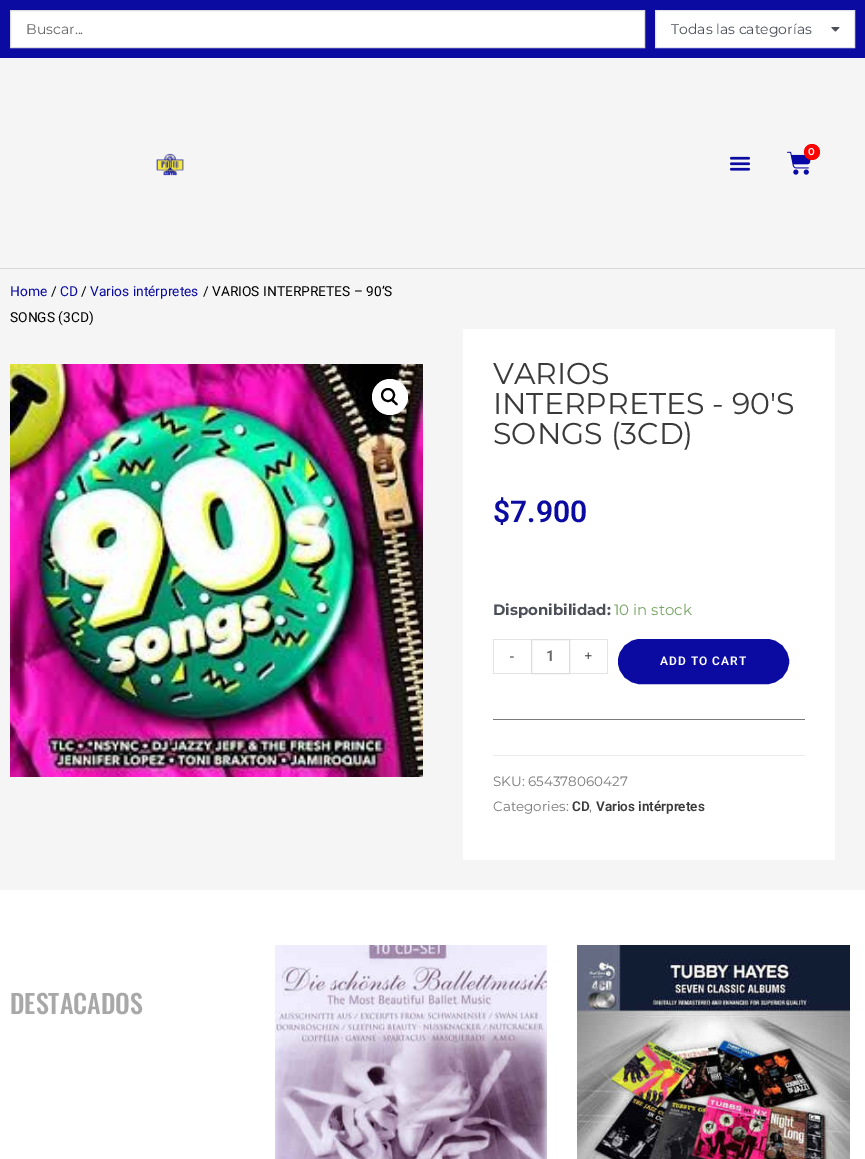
%!PS
<< /PageSize [865 1159] >> setpagedevice
/m/moveto load def
/l/rlineto load def
/c/rcurveto load def
/z/closepath load def
/f/fill load def
/s/stroke load def
/q/gsave load def
/Q_/grestore load def
/w/setlinewidth load def
/C { dup -16 bitshift 255 div exch dup -8 bitshift 255 and 255 div exch 255 and 255 div setrgbcolor } def
/F { [ exch dup neg 0 0 3 -1 roll 0 0 ] selectfont } def
/T { moveto show } def
/R { rectfill } def
/O { newpath 0 360 arc closepath } def
/Q { 5 dict begin { /r /h /w /y /x } { exch def } forall
  x r add y moveto x w add y 2 copy h add r arct x w add y h add x 1 index r arct
  x y h add x y r arct x y 2 copy exch w add exch r arct closepath end } def
/I { 5 dict begin { /h /w /y /x /name } { exch def } forall
  gsave x y translate w h scale
  w h 8 [w 0 0 h 0 0] name (r) file false 3 colorimage grestore end } def
0 1159 translate 1 -1 scale
4 setmiterlimit
16#F5F5F5 C
0 0 865 1159 R
16#0B0BA2 C
0 0 865 58 R
16#FFFFFF C
10.5 10.5 m 634 0 l 0 37 l -634 0 l z q f Q_
16#DDDDDD C
s
/Montserrat-Regular 14 F
16#666666 C
(Buscar...) 26 34 T
16#FFFFFF C
655.5 10.5 m 199 0 l 0 37 l -199 0 l z q f Q_
16#E1E5EB C
s
16#4B4F58 C
(Todas las categorías) 671 34 T
(1.rgb) 831 27 9 5 I
16#D8D8D8 C
0 268 865 1 R
(2.rgb) 787 151 24 24 I
16#FF0000 C
812 152 8 O f
/Montserrat-SemiBold 10 F
16#FFFFFF C
808 155 m 1 0 (0) ashow
(3.rgb) 156 153 28 23 I
(4.rgb) 729 156 22 15 I
/Roboto-Regular 13.75 F
16#0B0BA2 C
(Home) 10 296 T
16#000000 C
(/) 51 296 T
16#0B0BA2 C
(CD) 60 296 T
16#000000 C
(/) 81 296 T
16#0B0BA2 C
(Varios intérpretes) 90 296 T
16#000000 C
(/ VARIOS INTERPRETES – 90’S) 203 296 T
(SONGS \(3CD\)) 10 322 T
(5.rgb) 10 364 413 413 I
16#FFFFFF C
390 397 18 O f
16#000000 C
2 w
388 395 6 O s
391.5 399.5 m 1.5 -1.5 3 1.5 3.5 2 c 1 .5 3.5 2.5 2.5 3.5 c -1.5 1 -3 -1.5 -3.5 -2 c -1 -.5 -3.5 -2.5 -2.5 -3.5 c z f
16#FFFFFF C
463 329 372 531 R
/Montserrat-Regular 30 F
16#3A3A3A C
(VARIOS) 493 384 T
(INTERPRETES - 90'S) 493 414 T
(SONGS \(3CD\)) 493 444 T
/Roboto-SemiBold 30 F
16#0B0BA2 C
($7.900) 493 522 T
/Montserrat-Bold 15 F
16#4B4F58 C
(Disponibilidad:) 493 615 T
/Montserrat-Regular 15 F
16#77A464 C
(10 in stock) 614 615 T
16#E4E4E4 C
493 639 38 1 R
493 673 38 1 R
493 639 1 35 R
16#3A3A3A C
(-) 509 661 T
16#DDDDDD C
1 w
531.5 639.5 38 34 rectstroke
/Roboto-SemiBold 15 F
16#666666 C
(1) 546 661 T
16#E4E4E4 C
570 639 38 1 R
607 639 1 35 R
570 673 38 1 R
/Montserrat-Regular 15 F
16#3A3A3A C
(+) 584 661 T
16#0B0BA2 C
619 640 169 43 21.5 Q q f Q_
2 w
s
/Roboto-SemiBold 12 F
16#FFFFFF C
660 665 m 1 0 (ADD TO CART) ashow
16#7A7A7A C
493 719 312 1 R
16#EBEBEB C
493 755 312 1 R
/Montserrat-Regular 13.5 F
16#7A7A7A C
(SKU: 654378060427) 493 786 T
(Categories:) 493 811 T
/Roboto-SemiBold 13.5 F
16#3A3A3A C
(CD) 572 811 T
/Montserrat-Regular 13.5 F
16#7A7A7A C
(,) 589 811 T
/Roboto-SemiBold 13.5 F
16#3A3A3A C
(Varios intérpretes) 596 811 T
16#FFFFFF C
0 890 865 269 R
/Oswald-Medium 26 F
16#A8A8A8 C
(DESTACADOS) 10 1014 T
(6.rgb) 275 945 272 214 I
(7.rgb) 577 945 273 214 I
showpage
